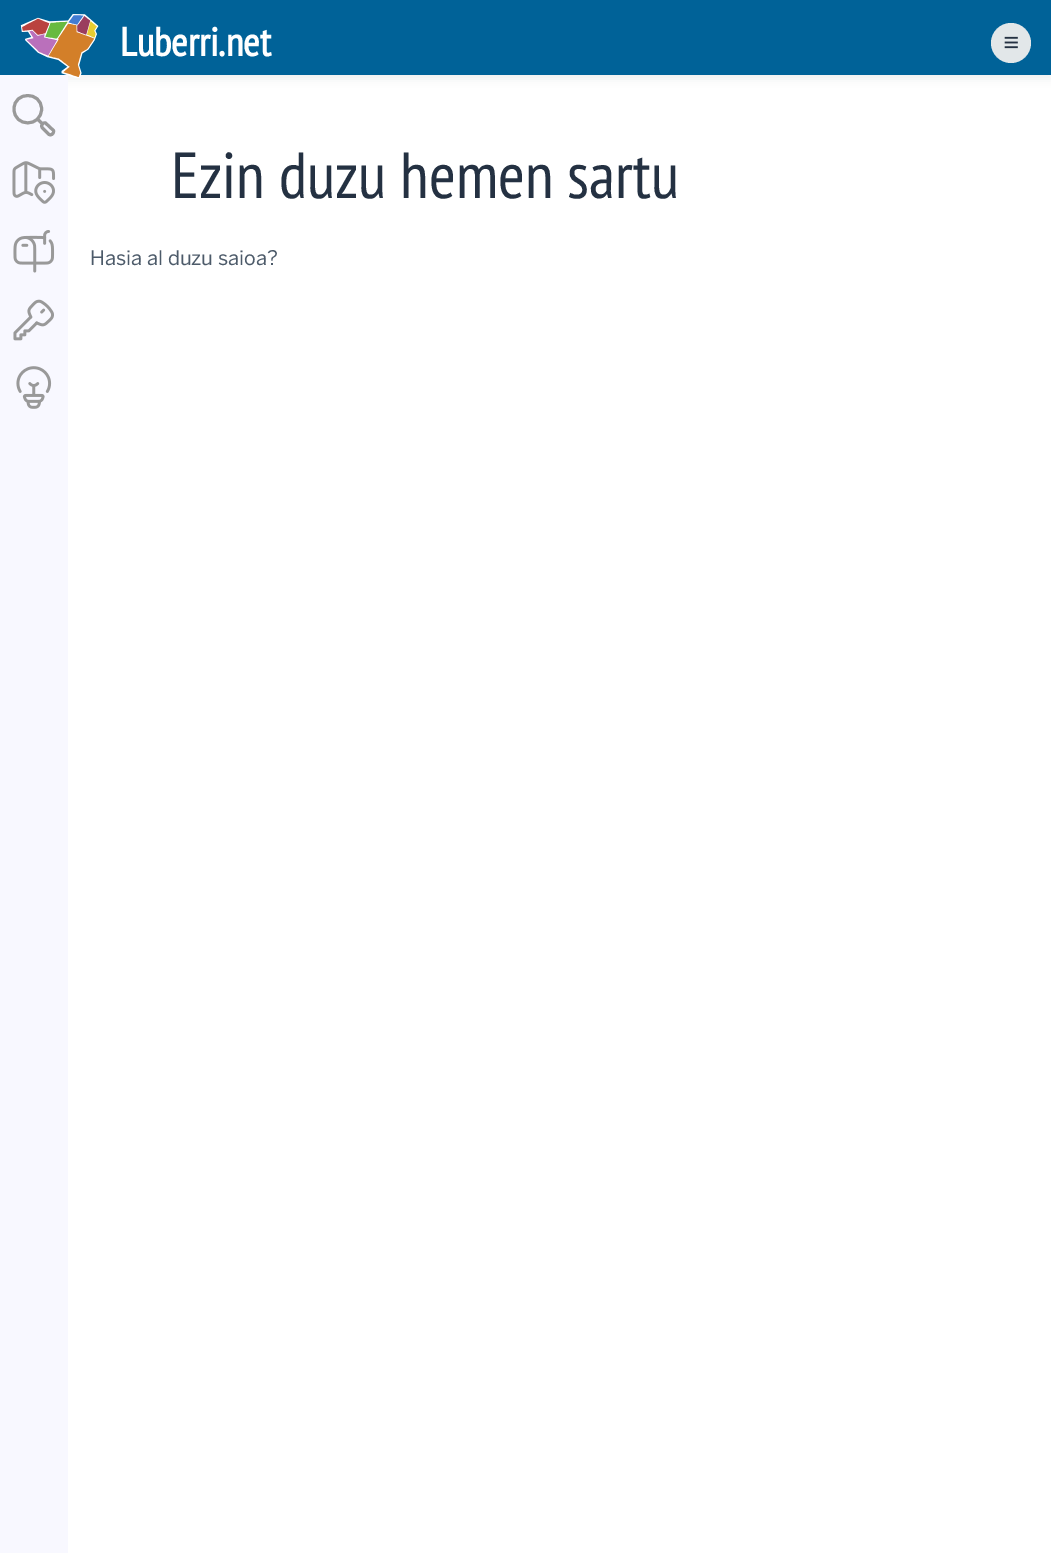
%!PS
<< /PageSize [1051 1553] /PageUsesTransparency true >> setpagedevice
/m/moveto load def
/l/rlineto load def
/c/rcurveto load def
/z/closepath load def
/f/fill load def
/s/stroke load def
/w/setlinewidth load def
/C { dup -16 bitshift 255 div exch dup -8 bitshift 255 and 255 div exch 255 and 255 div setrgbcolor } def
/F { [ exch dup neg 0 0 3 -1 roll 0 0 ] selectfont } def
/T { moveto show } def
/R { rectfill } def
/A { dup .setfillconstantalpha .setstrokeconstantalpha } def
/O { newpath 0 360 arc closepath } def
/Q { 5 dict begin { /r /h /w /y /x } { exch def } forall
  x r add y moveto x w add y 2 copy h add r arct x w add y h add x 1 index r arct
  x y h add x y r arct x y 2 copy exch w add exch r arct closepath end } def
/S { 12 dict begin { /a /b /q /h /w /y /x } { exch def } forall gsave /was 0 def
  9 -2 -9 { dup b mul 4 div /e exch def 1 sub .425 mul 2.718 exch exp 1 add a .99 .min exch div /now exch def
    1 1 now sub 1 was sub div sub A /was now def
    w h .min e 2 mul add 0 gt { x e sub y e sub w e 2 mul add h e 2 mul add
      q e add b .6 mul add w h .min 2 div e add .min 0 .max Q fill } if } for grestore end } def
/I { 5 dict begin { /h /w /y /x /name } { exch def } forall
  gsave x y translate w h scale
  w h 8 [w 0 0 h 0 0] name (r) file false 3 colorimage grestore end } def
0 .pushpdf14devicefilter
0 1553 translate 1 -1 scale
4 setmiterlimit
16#FFFFFF C
0 0 1051 1553 R
16#243142 C
0 4 1051 75 0 4 .07 S
16#006298 C
0 0 1051 75 R
(1.rgb) 20 14 79 64 I
/PTSansNarrow-Bold 40 F
16#FFFFFF C
(Luberri.net) 120 56 T
16#E2E7E9 C
1011 43 20 O f
(2.rgb) 1004 36 14 13 I
16#F8F8FF C
0 75 68 1478 R
16#999999 C
3 w
1 setlinecap
1 setlinejoin
37.5 119 m 5 5 l 42.5 128 m -2.5 -2.5 .5 -6 3 -5 c 8 7.5 l 1 3 -3 6 -5 3.5 c z 41.5 109 m 0 -18 -27.5 -18 -27.5 0 c 0 18.5 27.5 18.5 27.5 0 c s
(3.rgb) 12 161 44 43 I
(4.rgb) 13 230 42 43 I
(5.rgb) 13 299 41 42 I
(6.rgb) 16 366 36 43 I
/PTSansNarrow-Regular 65 F
16#243142 C
(Ezin duzu hemen sartu) 171 198 T
/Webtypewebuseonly-Regular 20 F
16#4C5A69 C
(Hasia al duzu saioa?) 90 265 T
.poppdf14devicefilter showpage
